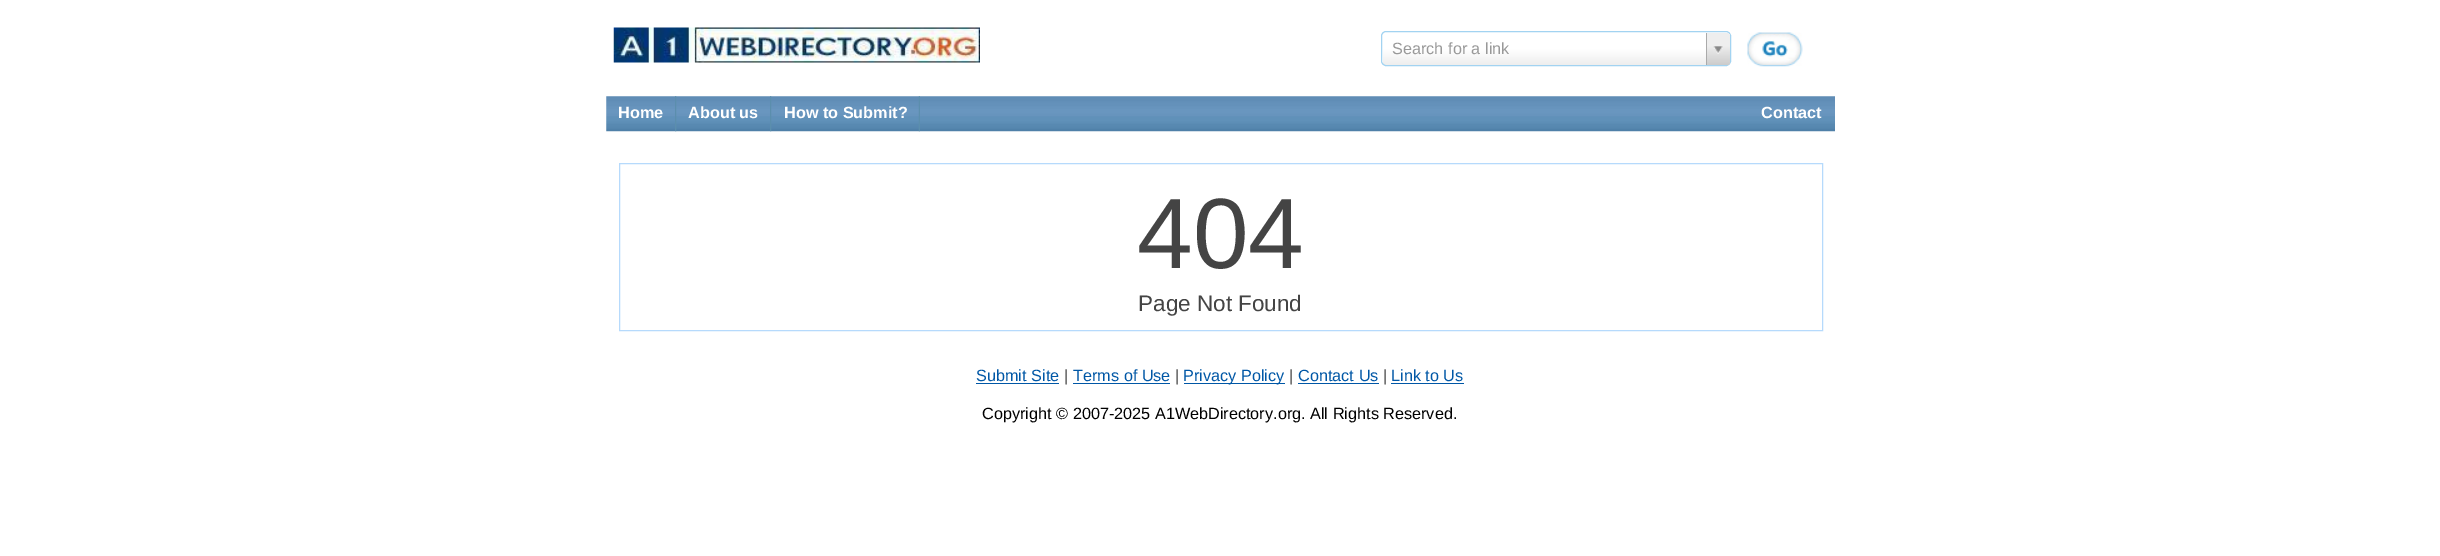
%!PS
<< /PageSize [2440 556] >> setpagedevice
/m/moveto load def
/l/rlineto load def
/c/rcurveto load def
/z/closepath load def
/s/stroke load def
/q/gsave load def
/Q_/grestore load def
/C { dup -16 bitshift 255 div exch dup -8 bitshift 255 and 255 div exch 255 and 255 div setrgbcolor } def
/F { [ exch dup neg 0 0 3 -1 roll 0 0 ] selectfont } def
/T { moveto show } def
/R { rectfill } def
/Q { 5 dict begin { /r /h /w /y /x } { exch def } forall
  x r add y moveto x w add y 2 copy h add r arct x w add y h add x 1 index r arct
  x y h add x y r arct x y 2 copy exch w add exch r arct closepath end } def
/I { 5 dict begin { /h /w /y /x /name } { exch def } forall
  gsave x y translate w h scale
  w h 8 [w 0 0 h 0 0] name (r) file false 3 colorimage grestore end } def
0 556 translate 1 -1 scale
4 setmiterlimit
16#FFFFFF C
0 0 2440 556 R
(1.rgb) 613 27 367 36 I
q 1383 33 347 32 4 Q clip newpath
<< /ShadingType 2 /ColorSpace /DeviceRGB /Coords [1383 65 1383 33] /Extend [true true] /Function << /FunctionType 3 /Domain [0 1] /Functions [<< /FunctionType 2 /Domain [0 1] /C0 [.933 .933 .933] /C1 [1 1 1] /N 1 >> << /FunctionType 2 /Domain [0 1] /C0 [1 1 1] /C1 [1 1 1] /N 1 >>] /Bounds [.5] /Encode [0 1 0 1] >> >> shfill Q_
16#A2D3F1 C
1381.5 31.5 349 34 4.5 Q s
/LiberationSans-Regular 16.25 F
16#999999 C
(Search for a link) 1392 54 T
q
1383 33 347 32 4 Q clip newpath
q 1706 33 m 19 0 l 3 0 5 2 5 5 c 0 22 l 0 3 -2 5 -5 5 c -19 0 l z clip newpath
<< /ShadingType 2 /ColorSpace /DeviceRGB /Coords [1708 65 1708 33] /Extend [true true] /Function << /FunctionType 3 /Domain [0 1] /Functions [<< /FunctionType 2 /Domain [0 1] /C0 [.8 .8 .8] /C1 [.933 .933 .933] /N 1 >> << /FunctionType 2 /Domain [0 1] /C0 [.933 .933 .933] /C1 [.933 .933 .933] /N 1 >>] /Bounds [.6] /Encode [0 1 0 1] >> >> shfill Q_
Q_
16#AAAAAA C
1706 33 1 32 R
(2.rgb) 1713 46 10 8 I
(3.rgb) 1747 32 56 35 I
(4.rgb) 606 96 1229 36 I
(5.rgb) 675 96 2 36 I
/LiberationSans-Bold 16.25 F
16#FFFFFF C
(Home) 618 118 T
(5.rgb) 770 96 2 36 I
(About us) 688 118 T
(6.rgb) 918 96 2 36 I
(How to Submit?) 784 118 T
(Contact) 1761 118 T
16#B6DAFC C
619.5 163.5 1203 167 rectstroke
/LiberationSans-Regular 100 F
16#444444 C
(404) 1137 268 T
/LiberationSans-Regular 22.5 F
(Page Not Found) 1138 311 T
/LiberationSans-Regular 16.25 F
16#0057A6 C
(Submit Site) 976 381 T
976 383 83 1 R
16#444444 C
(|) 1064 381 T
16#0057A6 C
(Terms of Use) 1073 381 T
1073 383 97 1 R
16#444444 C
(|) 1175 381 T
16#0057A6 C
1184 383 101 1 R
(Privacy Policy) 1183 381 T
16#444444 C
(|) 1289 381 T
16#0057A6 C
(Contact Us) 1298 381 T
1298 383 81 1 R
16#444444 C
(|) 1383 381 T
16#0057A6 C
(Link to Us) 1391 381 T
1391 383 73 1 R
16#000000 C
(Copyright © 2007-2025 A1WebDirectory.org. All Rights Reserved.) 982 419 T
showpage
